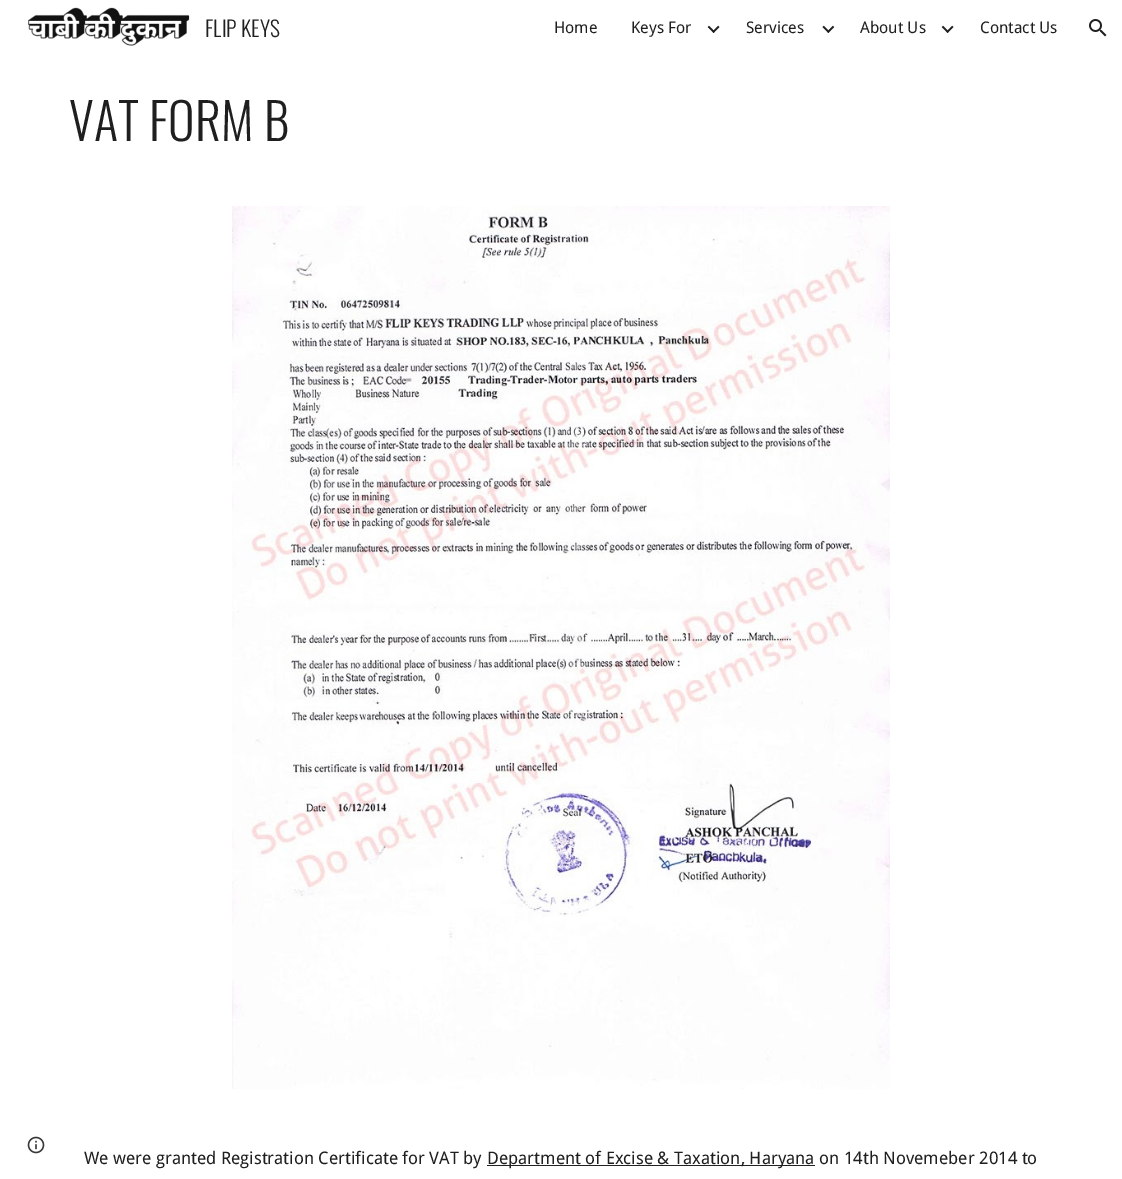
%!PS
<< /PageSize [1122 1179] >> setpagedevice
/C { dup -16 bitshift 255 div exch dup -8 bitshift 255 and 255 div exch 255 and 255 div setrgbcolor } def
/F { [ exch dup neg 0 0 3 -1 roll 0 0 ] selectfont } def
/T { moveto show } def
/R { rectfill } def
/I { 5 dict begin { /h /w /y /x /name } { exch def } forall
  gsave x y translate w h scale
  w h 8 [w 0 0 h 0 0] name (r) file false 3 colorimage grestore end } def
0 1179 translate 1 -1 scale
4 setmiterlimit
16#FFFFFF C
0 0 1122 1179 R
(1.rgb) 28 7 162 39 I
/Oswald-Light 21.5 F
16#1F1F1F C
(FLIP KEYS) 205 37 T
/DroidSans-Regular 16 F
(Home) 554 33 T
(Keys For) 631 33 T
(2.rgb) 707 25 13 8 I
(Services) 746 33 T
(3.rgb) 822 25 13 8 I
(About Us) 860 33 T
(4.rgb) 941 25 13 8 I
(Contact Us) 980 33 T
(5.rgb) 1089 19 18 18 I
(6.rgb) 27 1136 18 18 I
/Oswald-Light 50.5 F
(VAT FORM B) 69 141 T
(7.rgb) 232 206 658 883 I
/DroidSans-Regular 17.3 F
(We were granted Registration Certificate for VAT by) 84 1164 T
16#212121 C
487 1165 328 1 R
16#1F1F1F C
(Department of Excise & Taxation, Haryana on 14th Novemeber 2014 to) 487 1164 T
showpage
